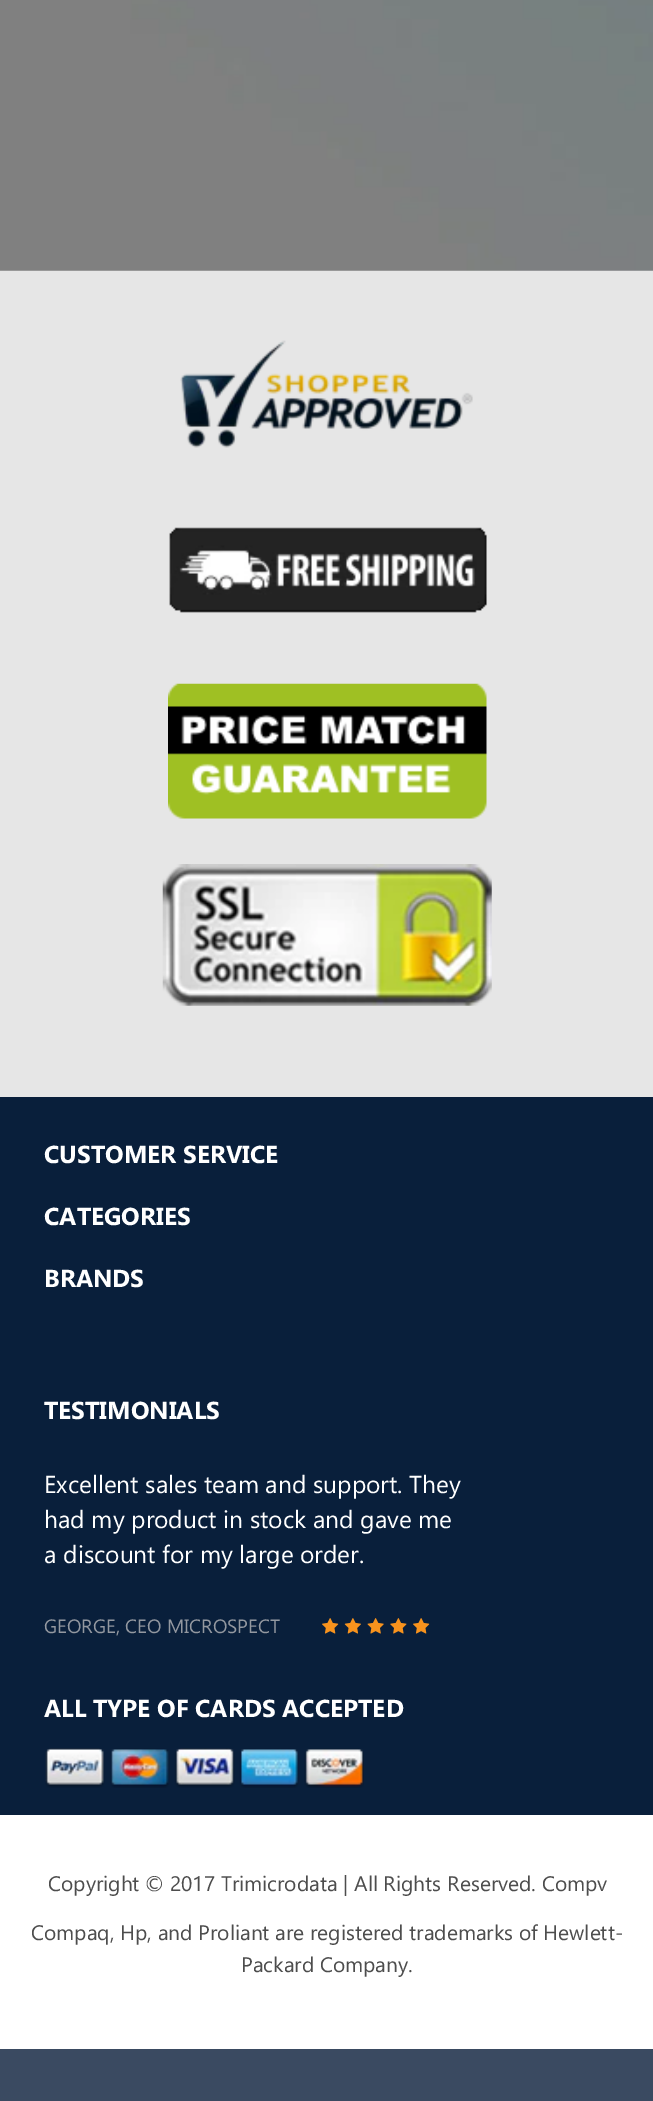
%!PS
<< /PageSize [653 2101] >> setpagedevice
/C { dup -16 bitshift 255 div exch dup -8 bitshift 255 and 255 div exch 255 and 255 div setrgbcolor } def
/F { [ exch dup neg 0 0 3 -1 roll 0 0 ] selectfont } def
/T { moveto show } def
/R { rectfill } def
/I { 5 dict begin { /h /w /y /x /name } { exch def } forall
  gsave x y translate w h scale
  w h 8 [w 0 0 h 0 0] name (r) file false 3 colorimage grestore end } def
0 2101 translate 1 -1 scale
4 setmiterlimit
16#E6E6E6 C
0 0 653 2101 R
(1.rgb) 0 0 653 271 I
(2.rgb) 180 340 293 108 I
(3.rgb) 169 527 318 86 I
(4.rgb) 168 683 319 136 I
(5.rgb) 162 864 330 142 I
16#091F3B C
0 1097 653 718 R
/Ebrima-Bold 24.5 F
16#FFFFFF C
(CUSTOMER SERVICE) 44 1163 T
(CATEGORIES) 44 1225 T
(BRANDS) 44 1287 T
(TESTIMONIALS) 44 1419 T
/Ebrima-Regular 24.5 F
(Excellent sales team and support. They) 44 1493 T
(had my product in stock and gave me) 44 1528 T
(a discount for my large order.) 44 1563 T
/Ebrima-Regular 19.25 F
16#9398A0 C
(GEORGE, CEO MICROSPECT) 44 1633 T
(6.rgb) 322 1618 17 16 I
(7.rgb) 344 1618 17 16 I
(8.rgb) 367 1618 17 16 I
(9.rgb) 390 1618 17 16 I
(6.rgb) 413 1618 17 16 I
/Ebrima-Bold 24.5 F
16#FFFFFF C
(ALL TYPE OF CARDS ACCEPTED) 44 1717 T
(10.rgb) 45 1748 319 40 I
0 1815 653 234 R
/Ebrima-Regular 21 F
16#4D4D4D C
(Copyright © 2017 Trimicrodata | All Rights Reserved. Compv) 48 1891 T
(Compaq, Hp, and Proliant are registered trademarks of Hewlett-) 31 1940 T
(Packard Company.) 241 1972 T
16#3A4A61 C
0 2049 653 52 R
showpage
